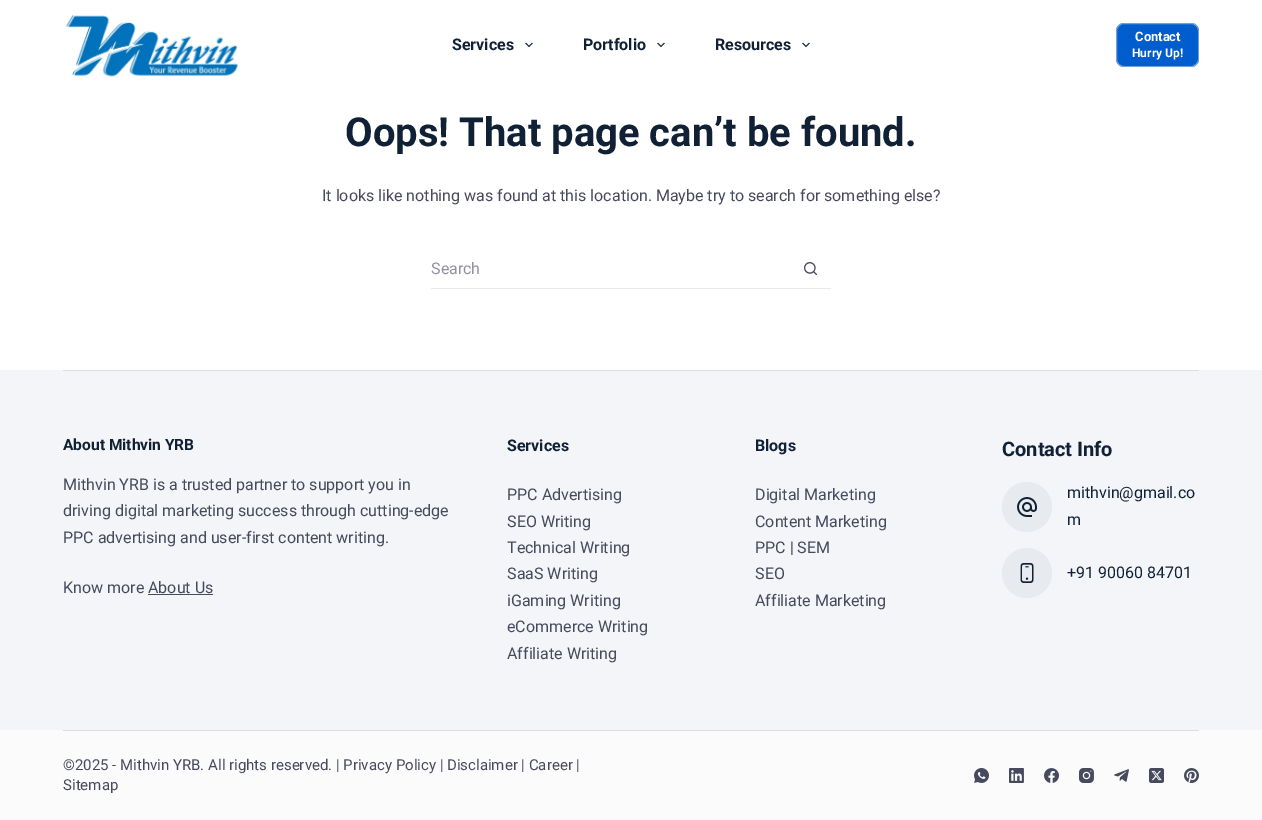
%!PS
<< /PageSize [1262 820] /PageUsesTransparency true >> setpagedevice
/m/moveto load def
/c/rcurveto load def
/f/fill load def
/s/stroke load def
/w/setlinewidth load def
/C { dup -16 bitshift 255 div exch dup -8 bitshift 255 and 255 div exch 255 and 255 div setrgbcolor } def
/F { [ exch dup neg 0 0 3 -1 roll 0 0 ] selectfont } def
/T { moveto show } def
/R { rectfill } def
/A { dup .setfillconstantalpha .setstrokeconstantalpha } def
/O { newpath 0 360 arc closepath } def
/Q { 5 dict begin { /r /h /w /y /x } { exch def } forall
  x r add y moveto x w add y 2 copy h add r arct x w add y h add x 1 index r arct
  x y h add x y r arct x y 2 copy exch w add exch r arct closepath end } def
/I { 5 dict begin { /h /w /y /x /name } { exch def } forall
  gsave x y translate w h scale
  w h 8 [w 0 0 h 0 0] name (r) file false 3 colorimage grestore end } def
0 .pushpdf14devicefilter
0 820 translate 1 -1 scale
4 setmiterlimit
16#FFFFFF C
0 0 1262 820 R
(1.rgb) 65 15 174 62 I
/Roboto-Bold 16 F
16#102136 C
(Services) 452 50 T
(2.rgb) 525 42 8 6 I
(Portfolio) 583 50 T
(2.rgb) 657 42 8 6 I
(Resources) 715 50 T
(2.rgb) 802 42 8 6 I
16#005DCE C
1116 23 83 44 8 Q f
0.5 A
16#E0E5EB C
1116.5 23.5 82 43 7.5 Q s
/Roboto-Bold 13 F
1 A
16#FFFFFF C
(Contact) 1135 41 T
/Roboto-Bold 12 F
(Hurry Up!) 1132 57 T
/Roboto-Bold 40 F
16#102136 C
(Oops! That page can’t be found.) 345 146 T
/Roboto-Regular 16 F
16#47495C C
(It looks like nothing was found at this location. Maybe try to search for something else?) 322 201 T
16#E7EBEE C
431 288 400 1 R
16#91929D C
(Search) 431 274 T
(3.rgb) 804 262 13 13 I
16#FFFFFF C
1.5 w
1 setlinecap
813.5 262 m 4 1.5 6 5.5 4.5 9.5 c s
16#F3F5F9 C
0 370 1262 360 R
16#DDDDDD C
63 370 1136 1 R
/Roboto-Bold 15.5 F
16#102136 C
(About Mithvin YRB) 63 450 T
/Roboto-Regular 16 F
16#47495C C
(Mithvin YRB is a trusted partner to support you in) 63 490 T
(driving digital marketing success through cutting-edge) 63 516 T
(PPC advertising and user-first content writing.) 63 543 T
(Know more About Us) 63 593 T
148 594 65 1 R
/Roboto-Bold 16 F
16#102136 C
(Services) 507 451 T
/Roboto-Regular 16 F
16#47495C C
(PPC Advertising) 507 500 T
(SEO Writing) 507 527 T
(Technical Writing) 507 553 T
(SaaS Writing) 507 579 T
(iGaming Writing) 507 606 T
(eCommerce Writing) 507 632 T
(Affiliate Writing) 507 659 T
/Roboto-Bold 16 F
16#102136 C
(Blogs) 755 451 T
/Roboto-Regular 16 F
16#47495C C
(Digital Marketing) 755 500 T
(Content Marketing) 755 527 T
(PPC | SEM) 755 553 T
(SEO) 755 579 T
(Affiliate Marketing) 755 606 T
/Roboto-Bold 20 F
16#102136 C
(Contact Info) 1002 456 T
16#E7EAEF C
1027 507 25 O f
(4.rgb) 1017 497 20 20 I
/Roboto-Regular 16 F
16#102136 C
(mithvin@gmail.co) 1067 498 T
(m) 1067 525 T
16#E7EAEF C
1027 573 25 O f
(5.rgb) 1020 563 14 20 I
16#102136 C
(+91 90060 84701) 1067 578 T
16#FBFBFC C
0 730 1262 90 R
16#DDDDDD C
63 730 1136 1 R
/Roboto-Regular 15 F
16#47495C C
(©2025 - Mithvin YRB. All rights reserved. | Privacy Policy | Disclaimer | Career |) 63 770 T
(Sitemap) 63 790 T
(6.rgb) 974 768 15 15 I
(7.rgb) 1009 768 15 15 I
(8.rgb) 1044 768 15 15 I
(9.rgb) 1079 768 15 15 I
(10.rgb) 1114 769 15 13 I
(11.rgb) 1149 768 15 15 I
(12.rgb) 1184 768 15 15 I
.poppdf14devicefilter showpage
